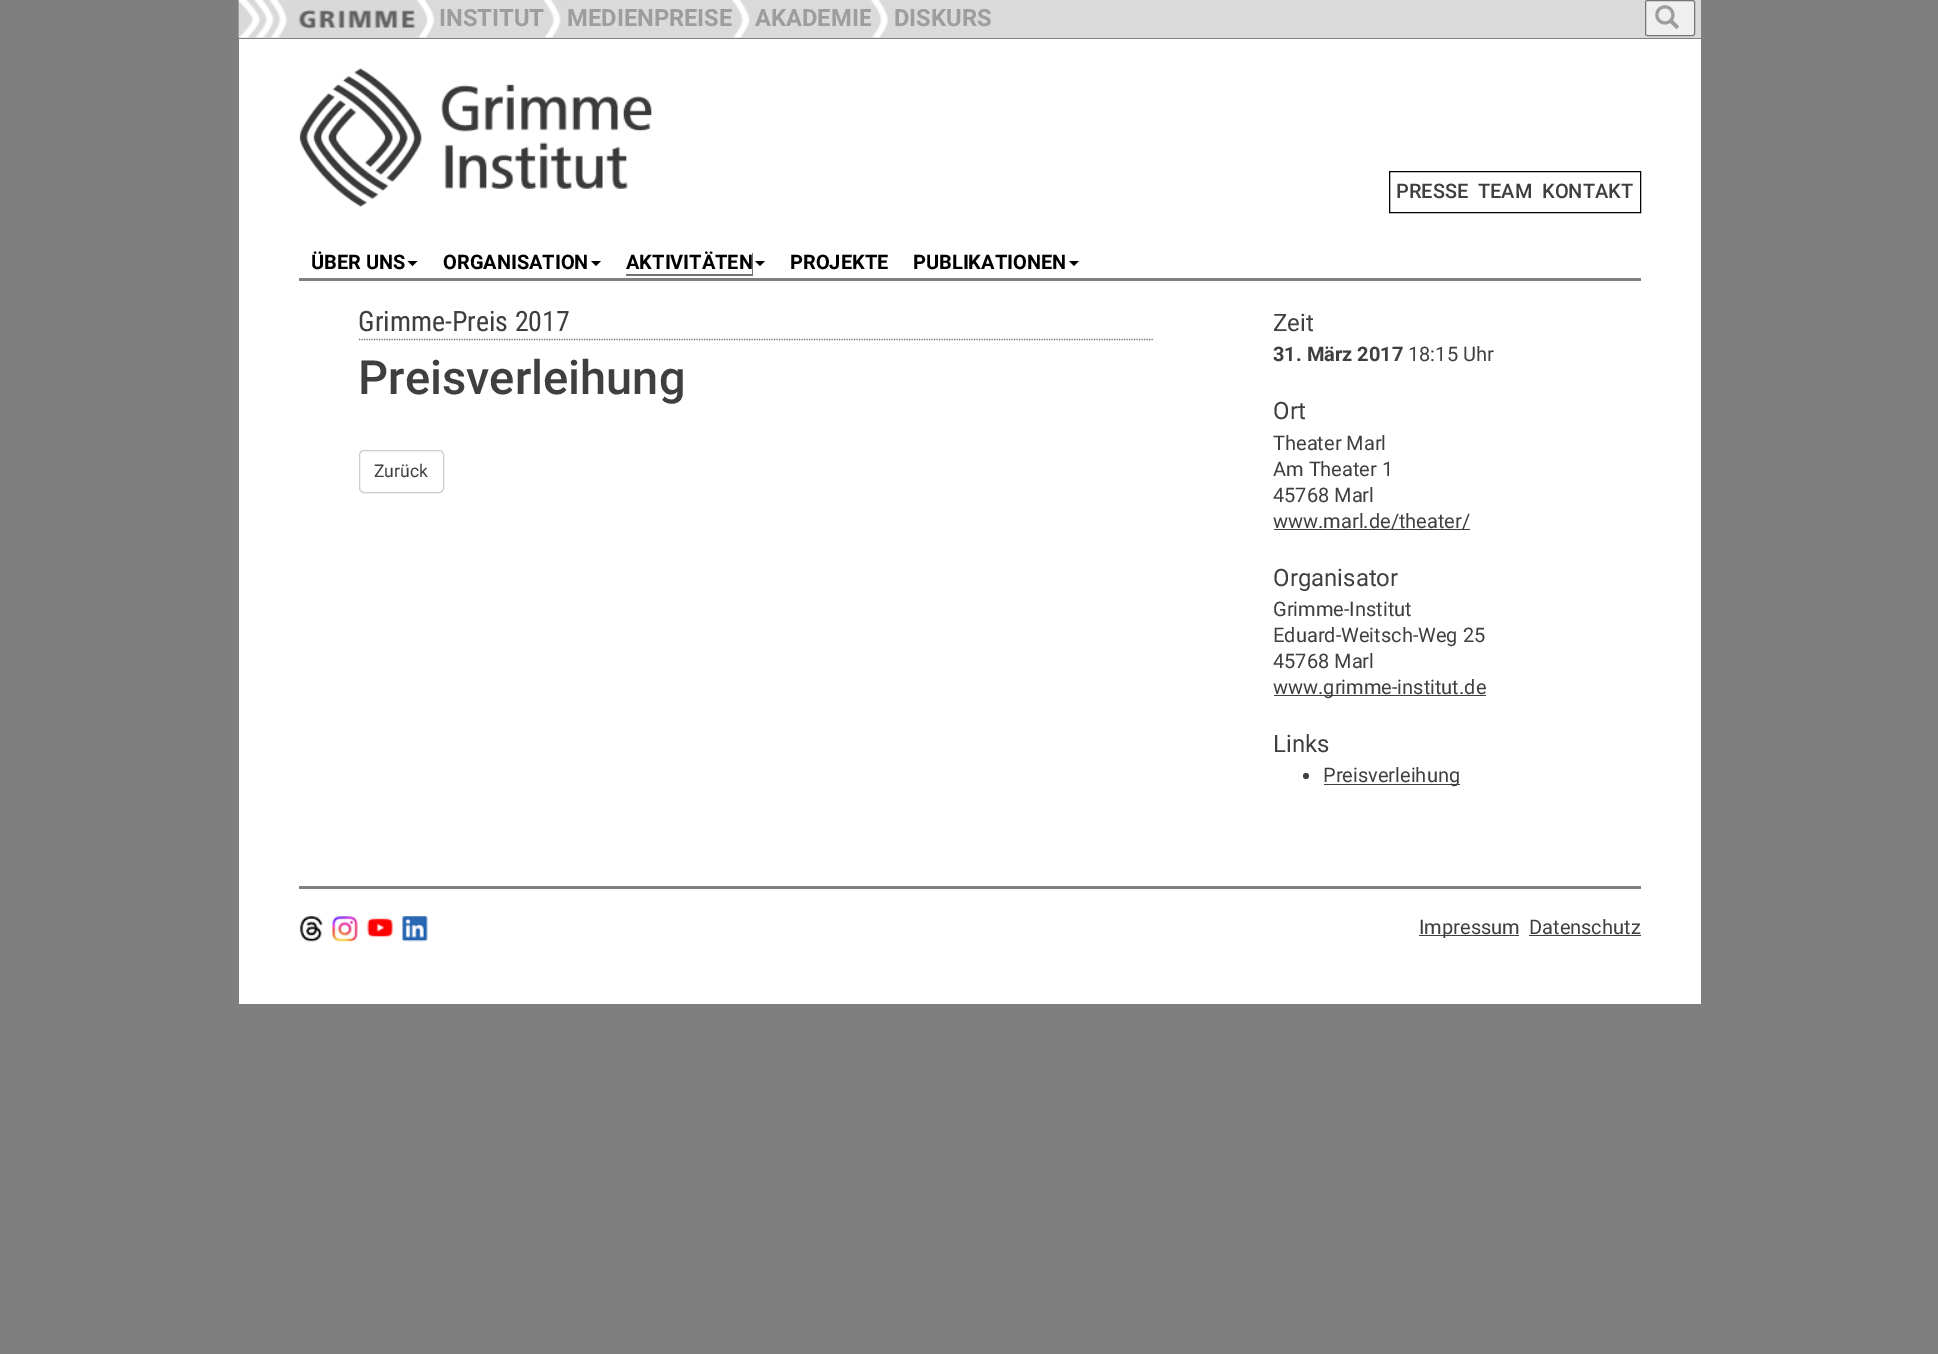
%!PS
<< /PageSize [1938 1354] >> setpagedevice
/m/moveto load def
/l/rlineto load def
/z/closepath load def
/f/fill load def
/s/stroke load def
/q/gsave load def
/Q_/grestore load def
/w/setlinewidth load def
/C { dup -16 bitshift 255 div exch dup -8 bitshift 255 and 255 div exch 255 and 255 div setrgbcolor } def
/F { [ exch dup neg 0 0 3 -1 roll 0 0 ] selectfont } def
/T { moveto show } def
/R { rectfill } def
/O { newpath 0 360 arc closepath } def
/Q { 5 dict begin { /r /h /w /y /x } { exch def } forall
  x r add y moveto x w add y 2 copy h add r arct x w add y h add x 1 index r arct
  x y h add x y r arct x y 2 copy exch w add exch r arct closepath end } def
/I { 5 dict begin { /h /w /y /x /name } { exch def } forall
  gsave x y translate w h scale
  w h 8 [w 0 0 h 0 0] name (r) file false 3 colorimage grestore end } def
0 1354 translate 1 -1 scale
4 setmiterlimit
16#7F7F7F C
0 0 1938 1354 R
16#DADADA C
239 0 1462 38 R
(1.rgb) 238 0 178 38 I
(2.rgb) 417 0 17 38 I
/Roboto-Bold 23.75 F
16#9D9D9D C
(INSTITUT) 439 26 T
(3.rgb) 543 0 18 38 I
(MEDIENPREISE) 567 26 T
(4.rgb) 732 0 18 38 I
(AKADEMIE) 755 26 T
(5.rgb) 870 0 18 38 I
(DISKURS) 894 26 T
16#EFEFEF C
1645.5 .5 49 35 2 Q q f Q_
16#767676 C
s
(6.rgb) 1655 5 24 24 I
16#FFFFFF C
239 39 1462 965 R
(7.rgb) 299 68 353 139 I
16#000000 C
1389.5 171.5 251 41 rectstroke
/Roboto-Medium 20 F
16#3F3F3F C
(PRESSE) 1396 198 T
(TEAM) 1478 198 T
(KONTAKT) 1542 198 T
/Roboto-Bold 20 F
16#000000 C
(ÜBER UNS) 311 269 T
407.5 261 m 10 0 l -5 5 l z f
(ORGANISATION) 443 269 T
591 261 m 10 0 l -5 5 l z f
16#727272 C
626 253 m 0 23 l 127 0 l 0 -23 l -1 0 l 0 21 l -126 0 l z f
16#000000 C
(AKTIVITÄTEN) 626 269 T
755 261 m 10 0 l -5 5 l z f
(PROJEKTE) 790 269 T
(PUBLIKATIONEN) 913 269 T
1069 261 m 10 0 l -5 5 l z f
16#808080 C
299 278 1342 3 R
16#727272 C
1.2 w
[1.25 1.25] 0 setdash
359 339.5 m 795 0 l s
/RobotoCondensed-Regular 28 F
16#3F3F3F C
(Grimme-Preis 2017) 358 331 T
/Roboto-Medium 47 F
(Preisverleihung) 358 394 T
16#CCCCCC C
1 w
[] 0 setdash
359.5 450.5 84 42 4.5 Q s
/Roboto-Regular 17.5 F
16#3F3F3F C
(Zurück) 374 477 T
/Roboto-Regular 24 F
(Zeit) 1273 331 T
/Roboto-Bold 20 F
(31. März 2017) 1273 361 T
/Roboto-Regular 20 F
(18:15 Uhr) 1408 361 T
/Roboto-Regular 24 F
(Ort) 1273 419 T
/Roboto-Regular 20 F
(Theater Marl) 1273 450 T
(Am Theater 1) 1273 476 T
(45768 Marl) 1273 502 T
1274 529 196 1 R
(www.marl.de/theater/) 1273 528 T
/Roboto-Regular 24 F
(Organisator) 1273 586 T
/Roboto-Regular 20 F
(Grimme-Institut) 1273 616 T
(Eduard-Weitsch-Weg 25) 1273 642 T
(45768 Marl) 1273 668 T
1274 695 212 1 R
(www.grimme-institut.de) 1273 694 T
/Roboto-Regular 24 F
(Links) 1273 752 T
1306 776 3 O f
1324 784 136 1 R
/Roboto-Regular 20 F
(Preisverleihung) 1323 782 T
16#808080 C
299 886 1342 3 R
(8.rgb) 299 916 24 26 I
(9.rgb) 332 916 26 26 I
(10.rgb) 367 918 26 19 I
(11.rgb) 402 916 26 26 I
16#3F3F3F C
1419 935 100 1 R
(Impressum) 1419 934 T
(Datenschutz) 1529 934 T
1529 935 112 1 R
showpage
